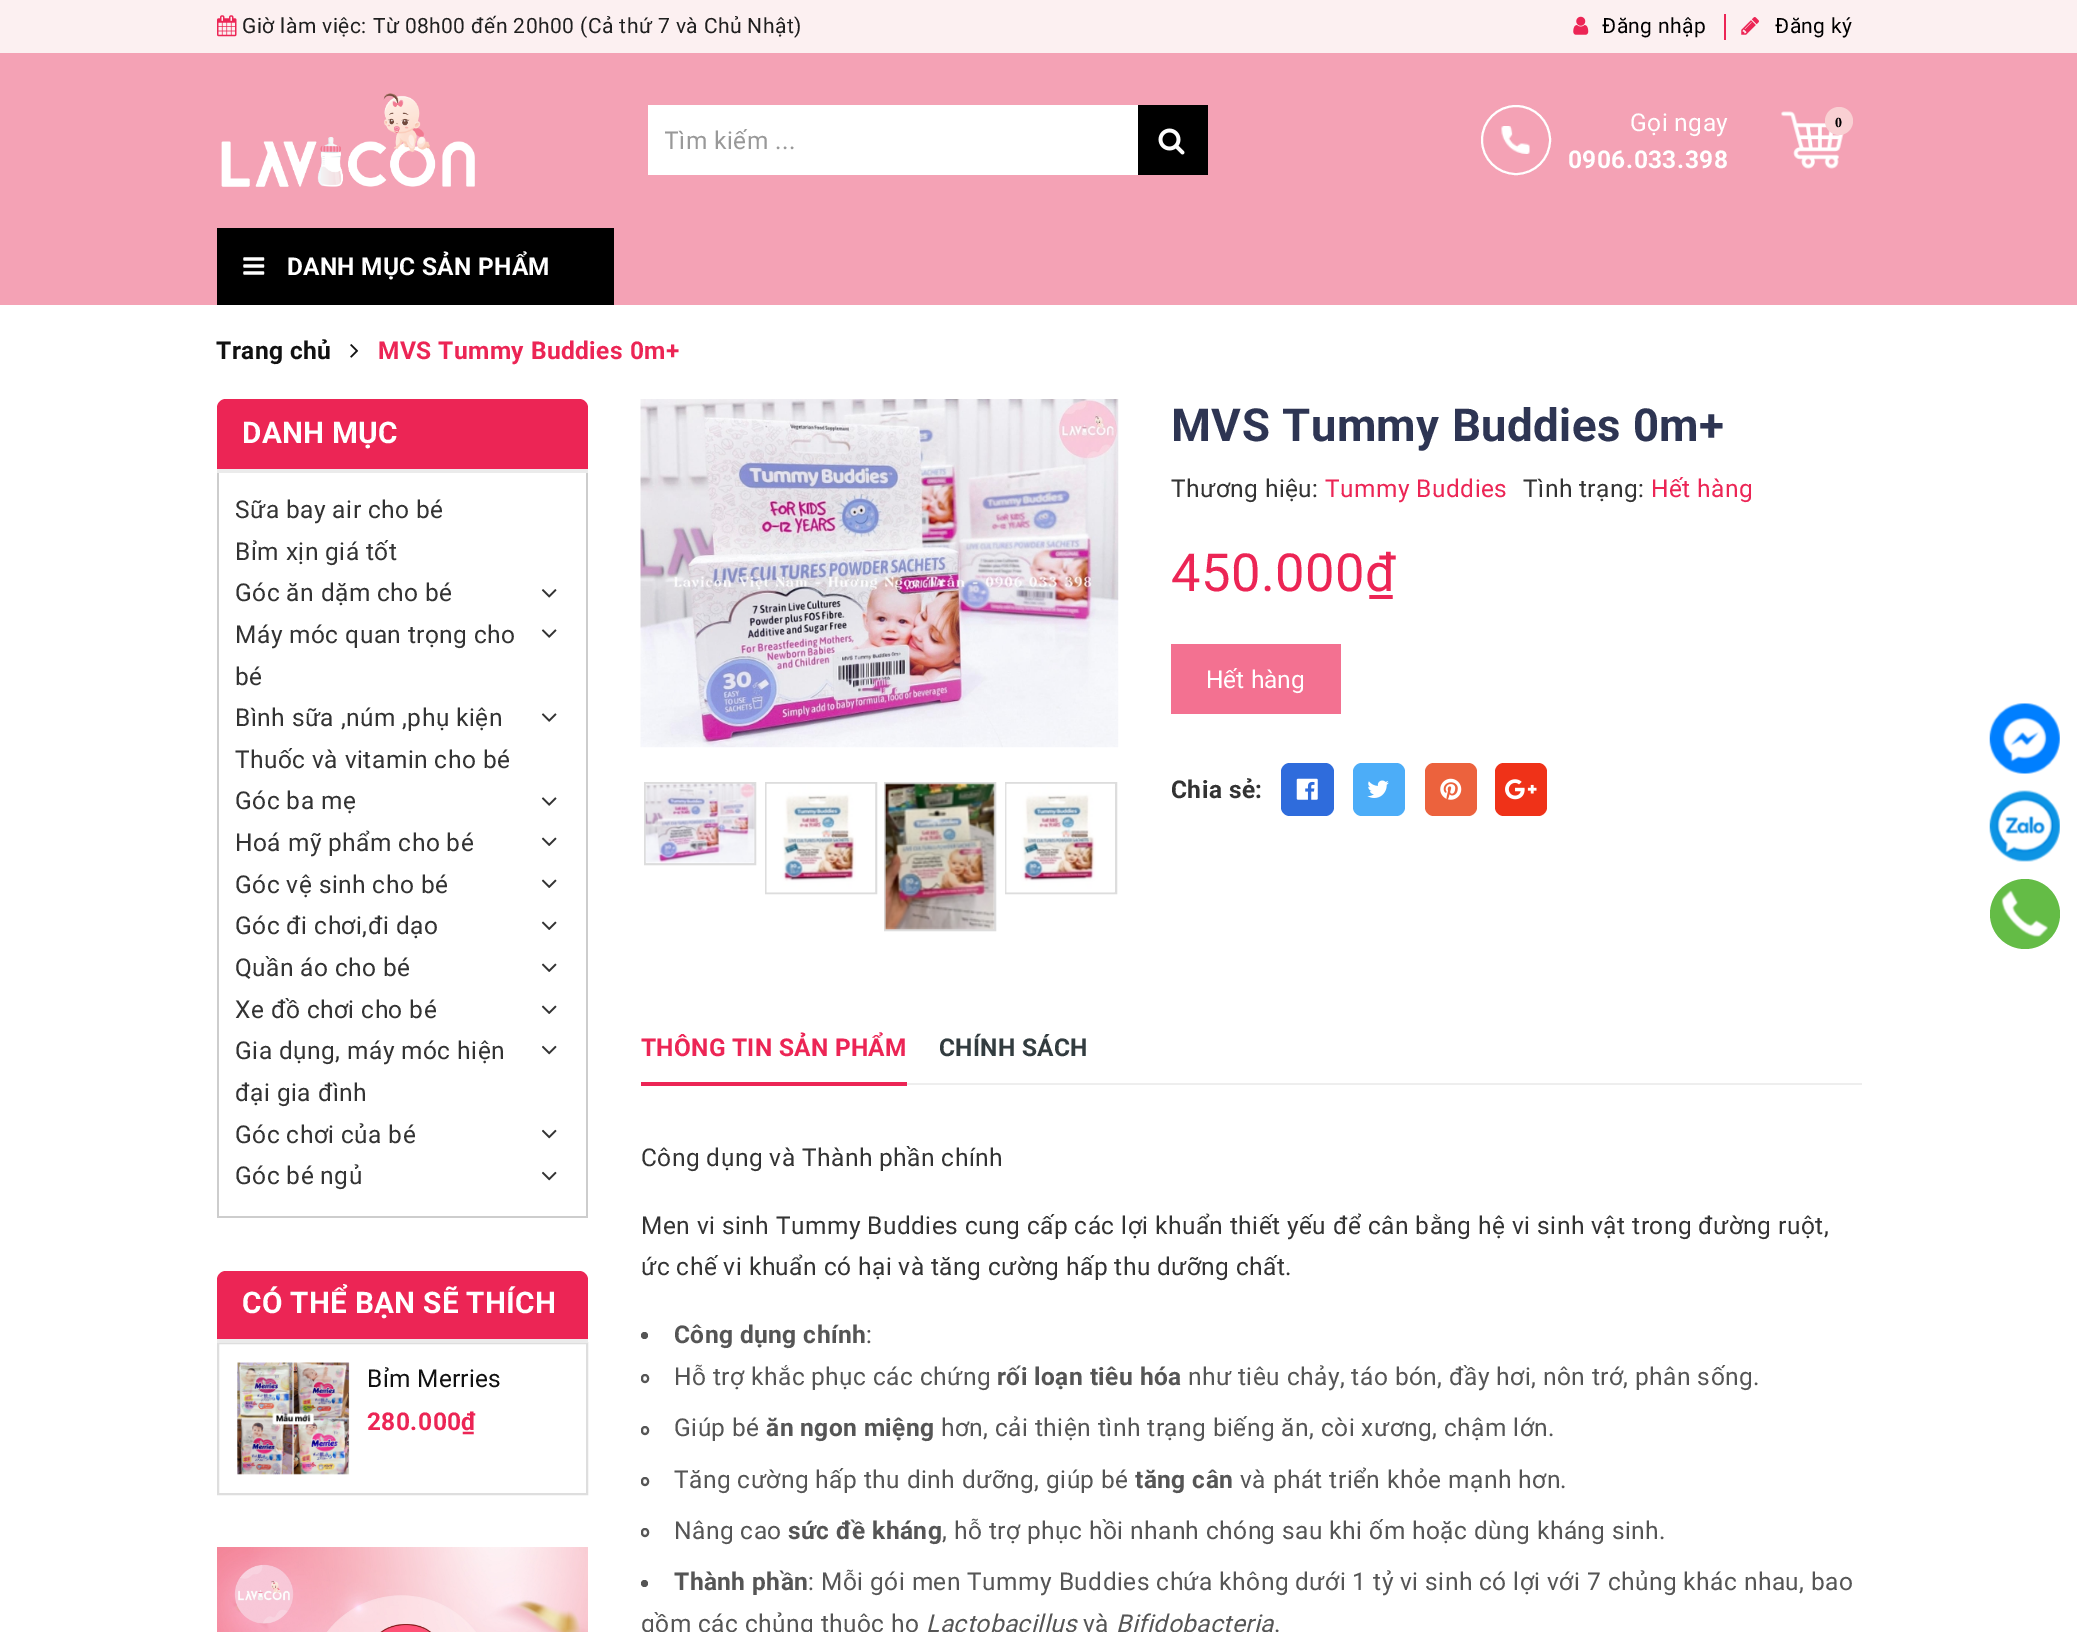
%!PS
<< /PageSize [2077 1632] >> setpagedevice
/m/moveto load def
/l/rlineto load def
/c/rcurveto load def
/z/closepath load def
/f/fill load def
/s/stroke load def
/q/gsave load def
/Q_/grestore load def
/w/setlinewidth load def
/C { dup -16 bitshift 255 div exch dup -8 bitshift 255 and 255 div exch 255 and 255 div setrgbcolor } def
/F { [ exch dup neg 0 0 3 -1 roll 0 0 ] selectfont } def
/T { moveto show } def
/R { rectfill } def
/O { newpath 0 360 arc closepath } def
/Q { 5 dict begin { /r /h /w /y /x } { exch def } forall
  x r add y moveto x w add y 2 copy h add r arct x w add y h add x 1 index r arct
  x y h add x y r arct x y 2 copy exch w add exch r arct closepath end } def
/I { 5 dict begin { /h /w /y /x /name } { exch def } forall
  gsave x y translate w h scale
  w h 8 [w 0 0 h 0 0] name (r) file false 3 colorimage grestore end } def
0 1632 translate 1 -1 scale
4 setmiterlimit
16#FFFFFF C
0 0 2077 1632 R
16#F4A2B5 C
0 53 2077 252 R
16#FCF0F1 C
0 0 2077 53 R
(1.rgb) 217 15 20 22 I
/Roboto-Regular 21 F
16#1F1F1F C
242 33 m .44 0 (Giờ làm việc: Từ 08h00 đến 20h00 \(Cả thứ 7 và Chủ Nhật\)) ashow
(2.rgb) 1573 16 16 19 I
16#000000 C
1602 33 m .44 0 (Đăng nhập) ashow
16#EC2555 C
1724 14 2 26 R
(3.rgb) 1741 17 18 18 I
16#000000 C
1775 33 m .44 0 (Đăng ký) ashow
(4.rgb) 221 93 254 94 I
16#FFFFFF C
648 105 490 70 R
q
665 126 448 28 rectclip
/Roboto-Regular 24.5 F
16#999999 C
664 149 m .44 0 (Tìm kiếm ...) ashow
Q_
16#000000 C
1138 105 70 70 R
(5.rgb) 1158 128 27 27 I
16#FFFFFF C
2 w
1516 140 34 O s
(6.rgb) 1501 126 29 28 I
/Roboto-Regular 24.5 F
1630 131 m .44 0 (Gọi ngay) ashow
/Roboto-Bold 24.5 F
1568 168 m .44 0 (0906.033.398) ashow
(7.rgb) 1781 111 63 58 I
16#F9D0D3 C
1839 121 14 O f
/LiberationSerif-Bold 14 F
16#000000 C
1835 127 m .44 0 (0) ashow
217 228 397 77 R
(8.rgb) 243 257 22 18 I
/Roboto-Bold 24.5 F
16#FFFFFF C
287 275 m .25 0 (DANH MỤC SẢN PHẨM) ashow
16#111111 C
216 359 m .44 0 (Trang chủ) ashow
(9.rgb) 350 344 9 14 I
16#EC2555 C
378 359 m .44 0 (MVS Tummy Buddies 0m+) ashow
226 399 m 353 0 l 5 0 9 4 9 9 c 0 65 l -371 0 l 0 -65 l 0 -5 4 -9 9 -9 c z f
16#EBEBEB C
217 469 371 4 R
/Roboto-Bold 29.75 F
16#FFFFFF C
242 443 m .25 0 (DANH MỤC) ashow
16#CDCDCD C
586 473 2 745 R
217 1216 371 2 R
217 473 2 745 R
/Roboto-Regular 24.5 F
16#333333 C
235 518 m .44 0 (Sữa bay air cho bé) ashow
235 560 m .44 0 (Bỉm xịn giá tốt) ashow
235 601 m .44 0 (Góc ăn dặm cho bé) ashow
(10.rgb) 541 589 16 9 I
235 643 m .44 0 (Máy móc quan trọng cho) ashow
235 685 m .44 0 (bé) ashow
(11.rgb) 541 629 16 9 I
235 726 m .44 0 (Bình sữa ,núm ,phụ kiện) ashow
(11.rgb) 541 713 16 9 I
235 768 m .44 0 (Thuốc và vitamin cho bé) ashow
235 809 m .44 0 (Góc ba mẹ) ashow
(11.rgb) 541 797 16 9 I
235 851 m .44 0 (Hoá mỹ phẩm cho bé) ashow
(12.rgb) 541 837 16 9 I
235 893 m .44 0 (Góc vệ sinh cho bé) ashow
(12.rgb) 541 879 16 9 I
235 934 m .44 0 (Góc đi chơi,đi dạo) ashow
(12.rgb) 541 921 16 9 I
235 976 m .44 0 (Quần áo cho bé) ashow
(12.rgb) 541 963 16 9 I
235 1018 m .44 0 (Xe đồ chơi cho bé) ashow
(12.rgb) 541 1005 16 9 I
235 1059 m .44 0 (Gia dụng, máy móc hiện) ashow
235 1101 m .44 0 (đại gia đình) ashow
(13.rgb) 542 1045 15 10 I
235 1143 m .44 0 (Góc chơi của bé) ashow
(13.rgb) 542 1129 15 10 I
235 1184 m .44 0 (Góc bé ngủ) ashow
(13.rgb) 542 1171 15 10 I
16#EC2555 C
226 1271 m 353 0 l 5 0 9 4 9 9 c 0 62 l -371 0 l 0 -62 l 0 -5 4 -9 9 -9 c z f
16#DEDEDE C
218 1343 369 151 rectstroke
16#EBEBEB C
217 1339 371 4 R
/Roboto-Bold 29.75 F
16#FFFFFF C
242 1313 m .25 0 (CÓ THỂ BẠN SẼ THÍCH) ashow
(14.rgb) 237 1362 113 113 I
/Roboto-Regular 24.5 F
16#111111 C
367 1387 m .25 0 (Bỉm Merries) ashow
/Roboto-Bold 24.5 F
16#EC2555 C
367 1430 m .44 0 (280.000₫) ashow
(15.rgb) 217 1547 371 85 I
(16.rgb) 640 399 479 349 I
16#DDDDDD C
645 783 110 81 rectstroke
(17.rgb) 645 783 110 81 I
766 783 110 110 rectstroke
(18.rgb) 766 783 110 110 I
885 783 110 147 rectstroke
(19.rgb) 884 783 111 147 I
1006 783 110 110 rectstroke
(20.rgb) 1005 783 110 110 I
/Roboto-Bold 45.5 F
16#2E3553 C
1171 441 m .5 0 (MVS Tummy Buddies 0m+) ashow
/Roboto-Regular 24.5 F
16#333333 C
1171 497 m .44 0 (Thương hiệu:) ashow
16#EC2555 C
1325 497 m .44 0 (Tummy Buddies) ashow
16#333333 C
1523 497 m .44 0 (Tình trạng:) ashow
16#EC2555 C
1651 497 m .44 0 (Hết hàng) ashow
/Roboto-Regular 52.5 F
1171 591 m .44 0 (450.000₫) ashow
16#F37191 C
1171 644 170 70 R
/Roboto-Regular 24.5 F
16#FFFFFF C
(Hết hàng) 1206 688 T
/Roboto-Bold 24.5 F
16#333333 C
1171 798 m .44 0 (Chia sẻ:) ashow
16#2F6CDC C
1281 763 53 53 9 Q f
(21.rgb) 1296 778 22 22 I
16#4CADF8 C
1353 763 52 53 9 Q f
(22.rgb) 1367 780 22 18 I
16#EC623D C
1425 763 52 53 9 Q f
(23.rgb) 1440 778 22 22 I
16#EF3218 C
1495 763 52 53 9 Q f
(24.rgb) 1505 779 32 21 I
16#EEEEEE C
907 1083 955 2 R
16#EC2555 C
641 1056 m .25 0 (THÔNG TIN SẢN PHẨM) ashow
641 1082 266 4 R
16#323C3F C
939 1056 m .25 0 (CHÍNH SÁCH) ashow
/Roboto-Regular 24.5 F
16#333333 C
641 1166 m .44 0 (Công dụng và Thành phần chính) ashow
641 1234 m .44 0 (Men vi sinh Tummy Buddies cung cấp các lợi khuẩn thiết yếu để cân bằng hệ vi sinh vật trong đường ruột,) ashow
641 1275 m .44 0 (ức chế vi khuẩn có hại và tăng cường hấp thu dưỡng chất.) ashow
16#555555 C
644.5 1335.5 3.5 O f
/Roboto-Bold 24.5 F
674 1343 m .44 0 (Công dụng chính) ashow
/Roboto-Regular 24.5 F
866 1343 m .44 0 (:) ashow
642 1375 6 7 3 Q s
674 1385 m .44 0 (Hỗ trợ khắc phục các chứng) ashow
/Roboto-Bold 24.5 F
997 1385 m .44 0 (rối loạn tiêu hóa) ashow
/Roboto-Regular 24.5 F
1188 1385 m .44 0 (như tiêu chảy, táo bón, đầy hơi, nôn trớ, phân sống.) ashow
642 1427 6 7 3 Q s
674 1436 m .44 0 (Giúp bé) ashow
/Roboto-Bold 24.5 F
766 1436 m .44 0 (ăn ngon miệng) ashow
/Roboto-Regular 24.5 F
941 1436 m .44 0 (hơn, cải thiện tình trạng biếng ăn, còi xương, chậm lớn.) ashow
642 1478 6 7 3 Q s
674 1488 m .44 0 (Tăng cường hấp thu dinh dưỡng, giúp bé) ashow
/Roboto-Bold 24.5 F
1135 1488 m .44 0 (tăng cân) ashow
/Roboto-Regular 24.5 F
1240 1488 m .44 0 (và phát triển khỏe mạnh hơn.) ashow
642 1529 6 7 3 Q s
674 1539 m .44 0 (Nâng cao) ashow
/Roboto-Bold 24.5 F
788 1539 m .44 0 (sức đề kháng) ashow
/Roboto-Regular 24.5 F
942 1539 m .44 0 (, hỗ trợ phục hồi nhanh chóng sau khi ốm hoặc dùng kháng sinh.) ashow
644.5 1583.5 3.5 O f
/Roboto-Bold 24.5 F
674 1590 m .44 0 (Thành phần) ashow
/Roboto-Regular 24.5 F
808 1590 m .44 0 (: Mỗi gói men Tummy Buddies chứa không dưới 1 tỷ vi sinh có lợi với 7 chủng khác nhau, bao) ashow
641 1632 m .44 0 (gồm các chủng thuộc họ) ashow
/Roboto-Italic 24.5 F
926 1632 m .44 0 (Lactobacillus) ashow
/Roboto-Regular 24.5 F
1083 1632 m .44 0 (và) ashow
/Roboto-Italic 24.5 F
1116 1632 m .44 0 (Bifidobacteria) ashow
/Roboto-Regular 24.5 F
1274 1632 m .44 0 (.) ashow
(25.rgb) 1989 703 71 71 I
(26.rgb) 1989 790 71 72 I
16#64BC46 C
2025 914 35 O f
(27.rgb) 2001 890 47 47 I
showpage
